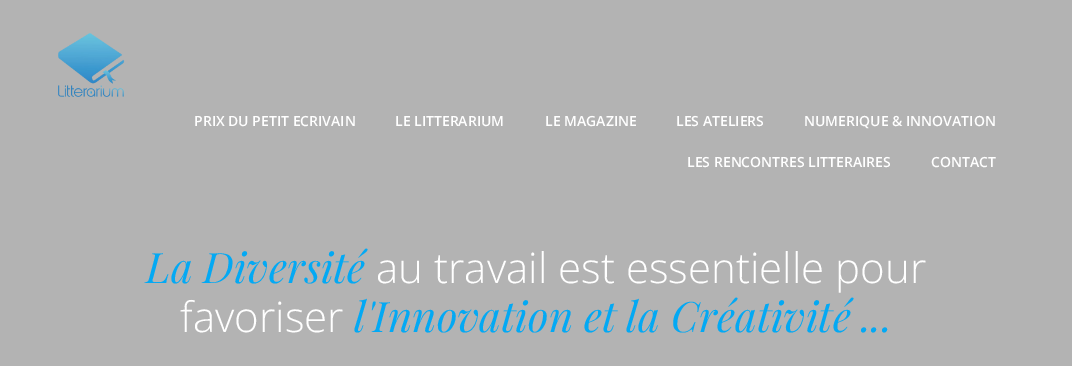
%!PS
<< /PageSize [1072 366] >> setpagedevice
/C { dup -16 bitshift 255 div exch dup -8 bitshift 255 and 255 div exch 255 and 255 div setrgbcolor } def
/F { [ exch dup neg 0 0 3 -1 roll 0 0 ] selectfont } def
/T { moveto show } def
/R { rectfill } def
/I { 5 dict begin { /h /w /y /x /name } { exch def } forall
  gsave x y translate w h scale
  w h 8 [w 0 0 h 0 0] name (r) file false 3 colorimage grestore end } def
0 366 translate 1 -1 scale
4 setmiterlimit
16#B3B3B3 C
0 0 1072 366 R
(1.rgb) 58 33 67 64 I
/OpenSans-SemiBold 14 F
16#FFFFFF C
(PRIX DU PETIT ECRIVAIN) 194 126 T
(LE LITTERARIUM) 395 126 T
(LE MAGAZINE) 545 126 T
(LES ATELIERS) 676 126 T
(NUMERIQUE & INNOVATION) 804 126 T
(LES RENCONTRES LITTERAIRES) 687 167 T
(CONTACT) 931 167 T
/PlayfairDisplay-Italic 42 F
16#03A9F4 C
(La Diversité) 146 283 T
/OpenSans-Light 42 F
16#FFFFFF C
(au travail est essentielle pour) 376 283 T
(favoriser) 180 332 T
/PlayfairDisplay-Italic 42 F
16#03A9F4 C
(l'Innovation et la Créativité ...) 354 332 T
showpage
